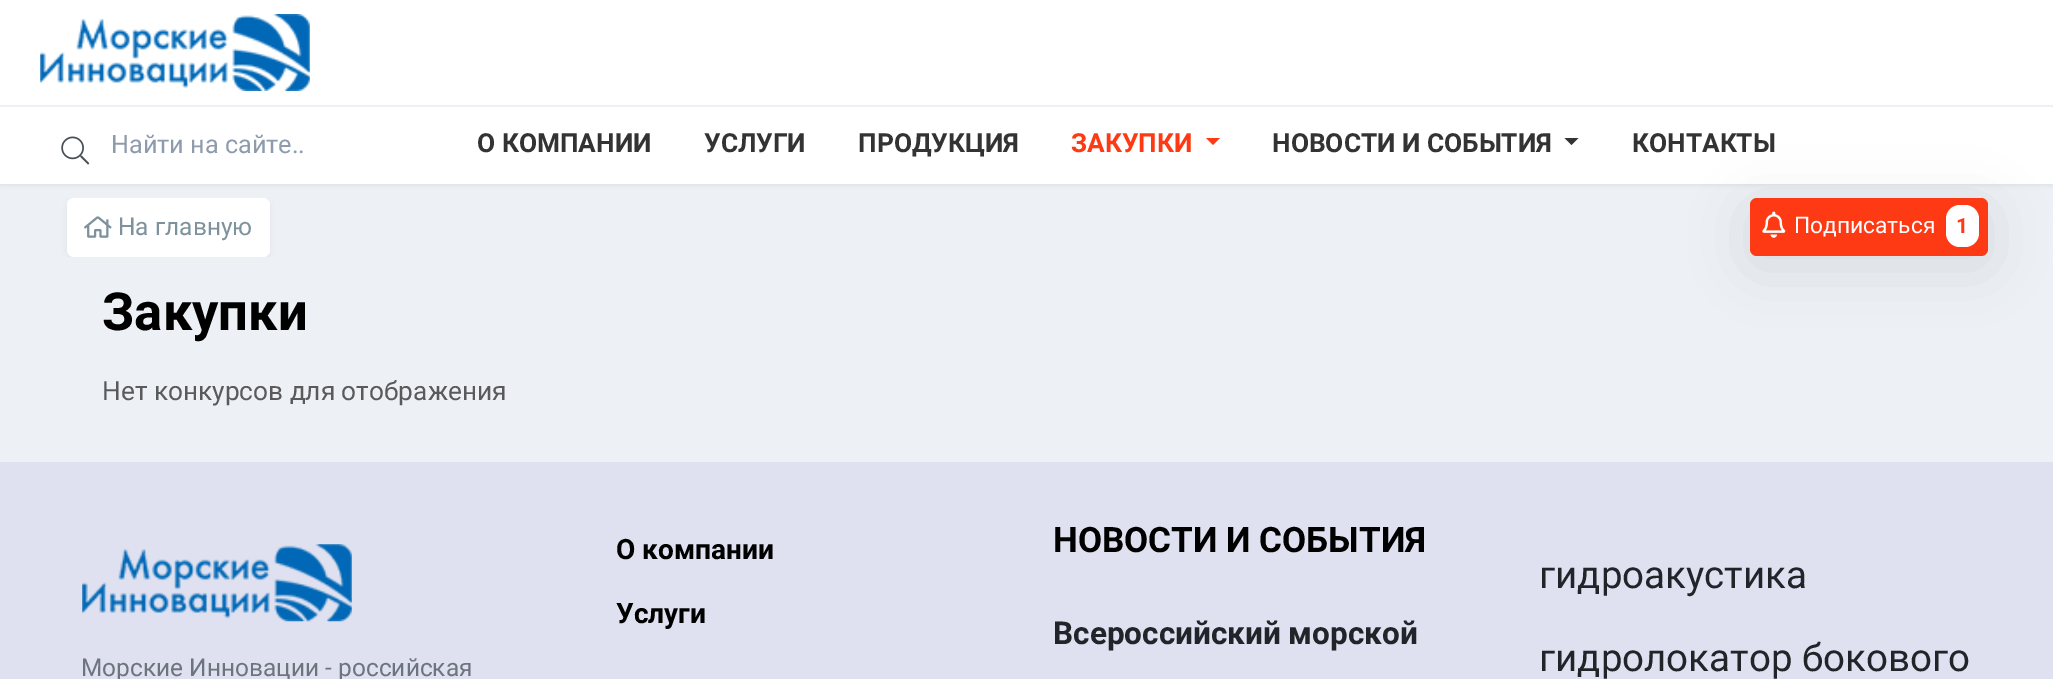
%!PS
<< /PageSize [2053 679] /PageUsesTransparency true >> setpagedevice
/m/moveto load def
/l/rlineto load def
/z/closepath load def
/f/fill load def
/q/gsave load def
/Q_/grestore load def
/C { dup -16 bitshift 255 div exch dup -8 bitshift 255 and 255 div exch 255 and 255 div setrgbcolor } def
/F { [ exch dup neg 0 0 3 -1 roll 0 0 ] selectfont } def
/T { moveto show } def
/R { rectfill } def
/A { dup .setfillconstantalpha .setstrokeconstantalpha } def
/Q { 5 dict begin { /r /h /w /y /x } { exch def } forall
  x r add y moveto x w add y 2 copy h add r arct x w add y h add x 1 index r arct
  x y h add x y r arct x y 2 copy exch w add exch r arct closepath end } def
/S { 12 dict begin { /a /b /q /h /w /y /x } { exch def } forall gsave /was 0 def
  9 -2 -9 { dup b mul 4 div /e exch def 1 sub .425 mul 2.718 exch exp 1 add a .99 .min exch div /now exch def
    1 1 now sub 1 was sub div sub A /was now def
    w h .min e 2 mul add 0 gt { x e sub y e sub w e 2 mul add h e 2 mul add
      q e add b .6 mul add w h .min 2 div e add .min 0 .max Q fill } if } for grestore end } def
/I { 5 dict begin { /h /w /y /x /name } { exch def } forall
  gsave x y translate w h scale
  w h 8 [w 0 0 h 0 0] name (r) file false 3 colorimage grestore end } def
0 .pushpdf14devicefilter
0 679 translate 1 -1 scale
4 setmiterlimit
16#EDF1F6 C
0 0 2053 679 R
16#FFFFFF C
0 0 2053 105 R
(1.rgb) 40 14 270 77 I
16#000000 C
0 107 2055 79 0 2 .05 S
16#FFFFFF C
0 107 2053 77 R
16#EDF1F6 C
0 105 2053 2 R
(2.rgb) 61 136 29 29 I
/Roboto-Regular 25.25 F
16#8E9AAD C
(Найти на сайте..) 111 153 T
/Roboto-Bold 26.25 F
16#333333 C
(О КОМПАНИИ) 477 152 T
(УСЛУГИ) 704 152 T
(ПРОДУКЦИЯ) 858 152 T
16#FD3A13 C
(ЗАКУПКИ) 1071 152 T
1206 138 m 14 0 l -7 7 l z f
16#333333 C
(НОВОСТИ И СОБЫТИЯ) 1272 152 T
1564.5 138 m 14 0 l -7 7 l z f
(КОНТАКТЫ) 1632 152 T
16#000000 C
1750 208 238 58 7 28 .1 S
16#FD3A13 C
1750 198 238 58 7 Q f
(3.rgb) 1762 211 24 27 I
/Roboto-Regular 22.75 F
16#FFFFFF C
(Подписаться) 1794 233 T
1946 205 33 42 14 Q f
/Roboto-Bold 21 F
16#FD3A13 C
(1) 1956 233 T
/Roboto-Bold 52.5 F
16#000000 C
(Закупки) 102 330 T
/Roboto-Regular 26.25 F
16#5A5A5A C
(Нет конкурсов для отображения) 102 400 T
q
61 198 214 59 rectclip
16#000000 C
67 200 203 59 7 3.5 .05 S
Q_
16#FFFFFF C
67 198 203 59 7 Q f
(4.rgb) 84 216 28 22 I
/Roboto-Regular 24.5 F
16#7D929D C
(На главную) 118 235 T
16#DFE1F0 C
0 462 2053 217 R
(5.rgb) 82 544 270 78 I
16#6C757D C
(Морские Инновации - российская) 81 676 T
/Roboto-Bold 28 F
16#000000 C
(О компании) 616 559 T
(Услуги) 616 623 T
/Roboto-Bold 35 F
(НОВОСТИ И СОБЫТИЯ) 1053 552 T
/Roboto-Bold 31.5 F
16#212529 C
(Всероссийский морской) 1053 644 T
/Roboto-Regular 38.5 F
(гидроакустика) 1539 588 T
(гидролокатор бокового) 1539 671 T
.poppdf14devicefilter showpage
